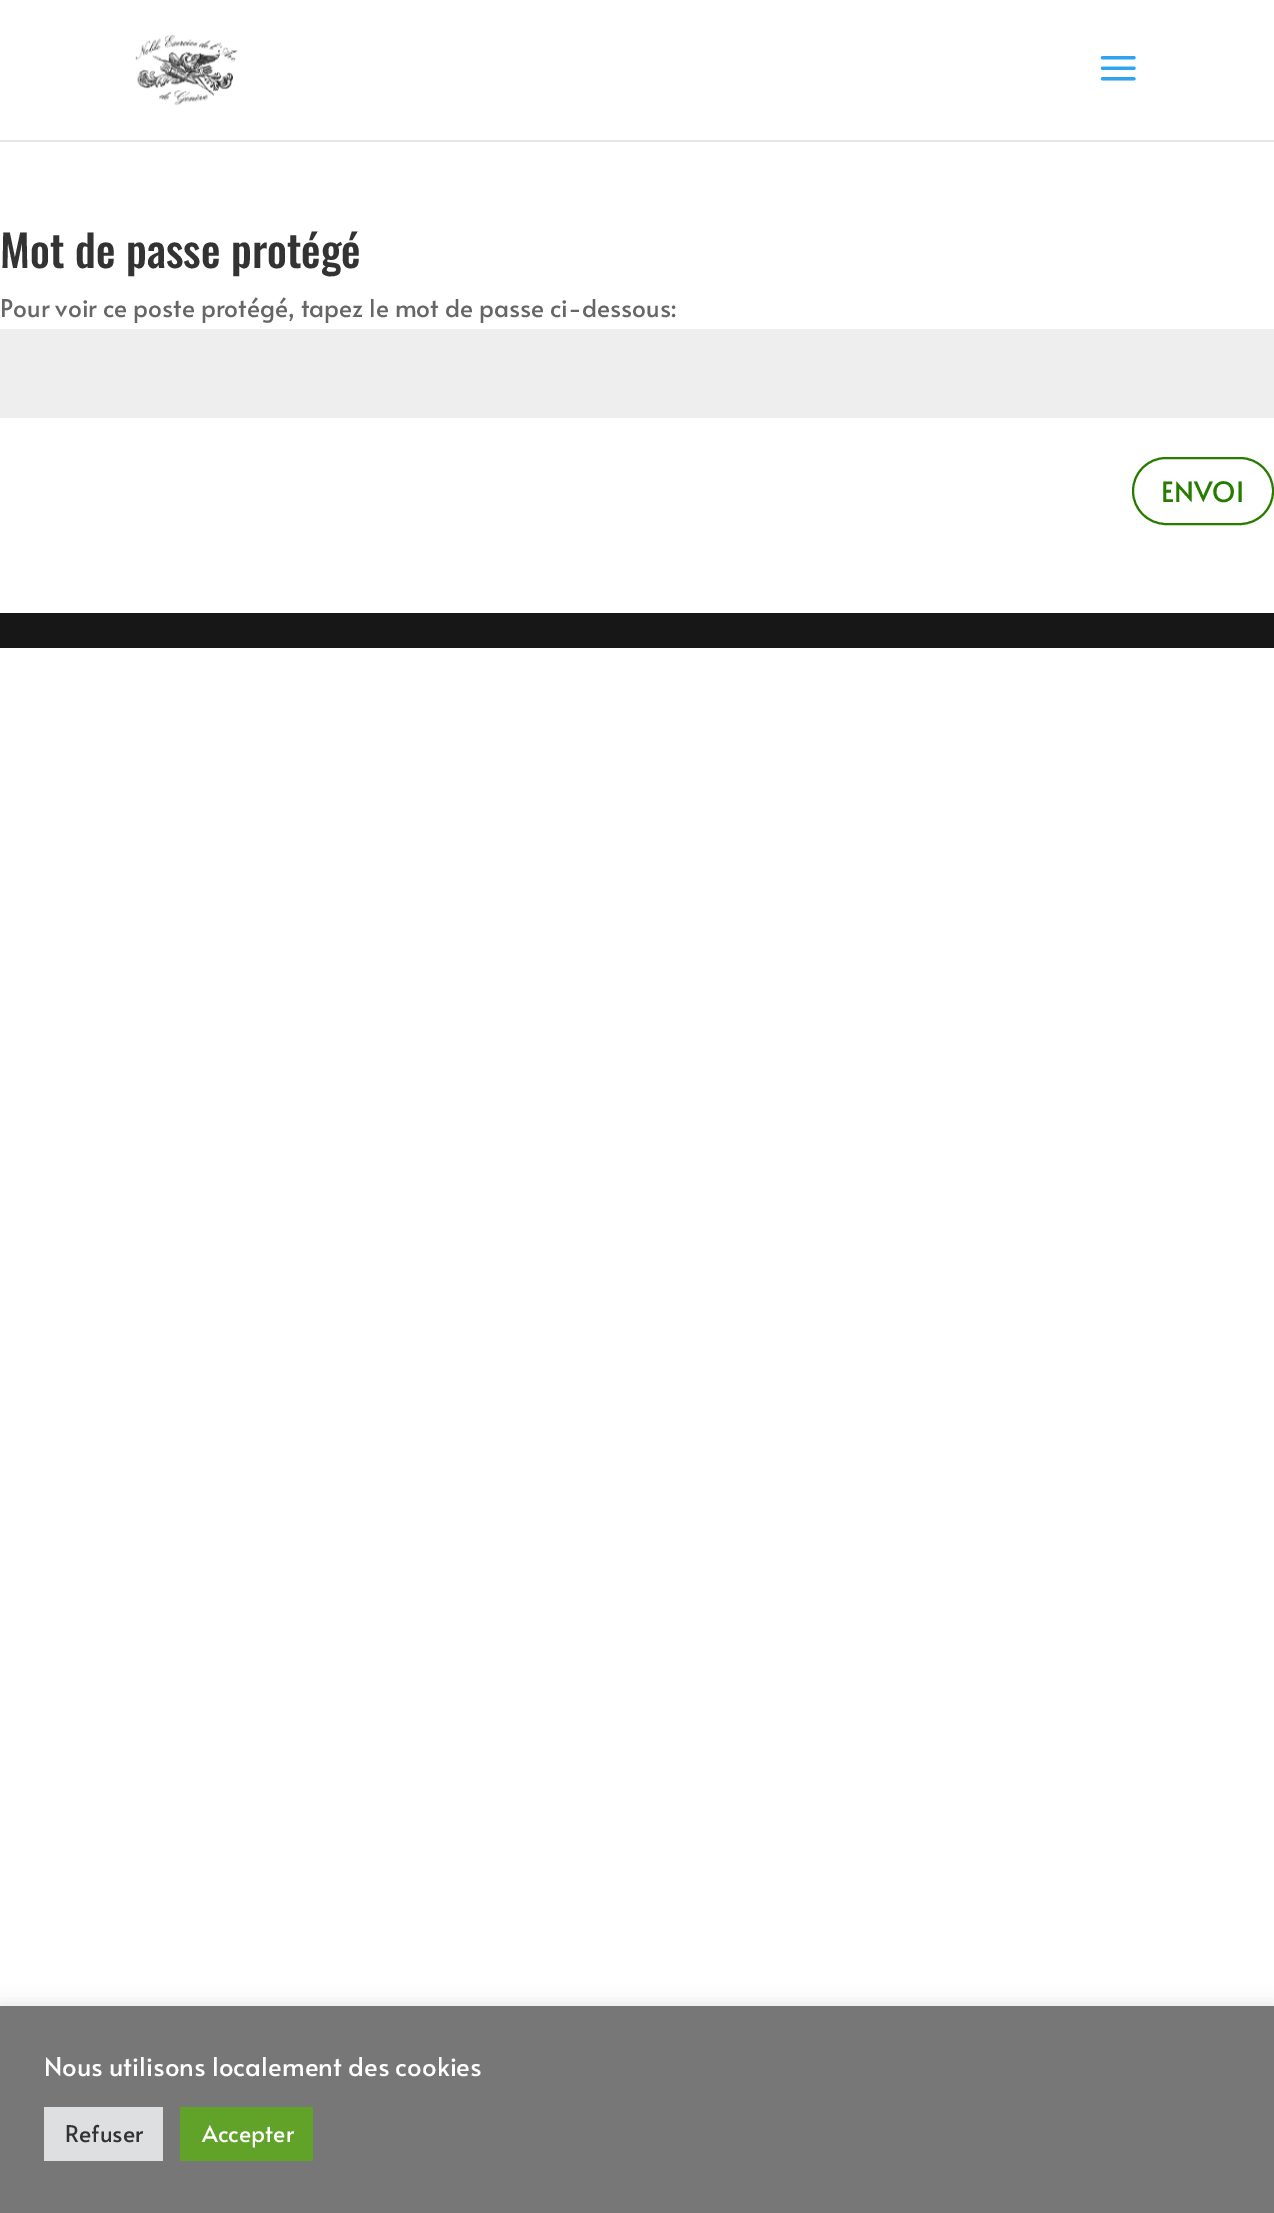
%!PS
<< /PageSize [1274 2213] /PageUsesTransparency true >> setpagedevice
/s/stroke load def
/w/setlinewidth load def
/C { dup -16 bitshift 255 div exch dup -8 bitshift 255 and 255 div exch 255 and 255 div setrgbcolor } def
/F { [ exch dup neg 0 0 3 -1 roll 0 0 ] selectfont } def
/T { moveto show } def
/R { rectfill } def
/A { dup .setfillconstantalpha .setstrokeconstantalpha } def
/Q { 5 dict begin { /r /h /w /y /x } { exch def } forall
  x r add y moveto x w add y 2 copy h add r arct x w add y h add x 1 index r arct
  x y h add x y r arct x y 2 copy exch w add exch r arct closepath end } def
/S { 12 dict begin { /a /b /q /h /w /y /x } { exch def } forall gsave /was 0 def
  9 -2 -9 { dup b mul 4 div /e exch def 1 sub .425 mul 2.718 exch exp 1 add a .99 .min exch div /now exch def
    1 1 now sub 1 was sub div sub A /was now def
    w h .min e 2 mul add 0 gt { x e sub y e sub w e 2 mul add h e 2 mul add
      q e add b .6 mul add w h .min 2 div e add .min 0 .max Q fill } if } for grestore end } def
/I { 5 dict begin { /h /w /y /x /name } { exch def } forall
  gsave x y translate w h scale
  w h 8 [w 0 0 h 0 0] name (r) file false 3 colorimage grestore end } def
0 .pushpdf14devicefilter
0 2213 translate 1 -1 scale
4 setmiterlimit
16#FFFFFF C
0 0 1274 2213 R
16#E6E6E6 C
0 140 1274 2 R
(1.rgb) 135 34 103 72 I
(2.rgb) 1100 56 36 25 I
/Oswald-Medium 43.75 F
16#333333 C
(Mot de passe protégé) 0 268 T
/Alata-Regular 24.5 F
16#666666 C
(Pour voir ce poste protégé, tapez le mot de passe ci-dessous:) 0 317 T
16#EEEEEE C
0 329 1274 89 R
16#277C00 C
2 w
1133 458 140 66 33 Q s
/Alata-Regular 28 F
(ENVOI) 1161 502 T
16#171717 C
0 613 1274 35 R
16#ACABAB C
0 2004 1274 208 0 9 .3 S
16#777777 C
0 2006 1274 207 R
/Alata-Regular 25.7 F
16#FFFFFF C
(Nous utilisons localement des cookies) 44 2076 T
16#DEDFE0 C
44 2107 119 54 R
/Alata-Regular 23 F
16#333333 C
(Refuser) 65 2142 T
16#61A229 C
180 2107 133 54 R
16#FFFFFF C
(Accepter) 202 2142 T
.poppdf14devicefilter showpage
